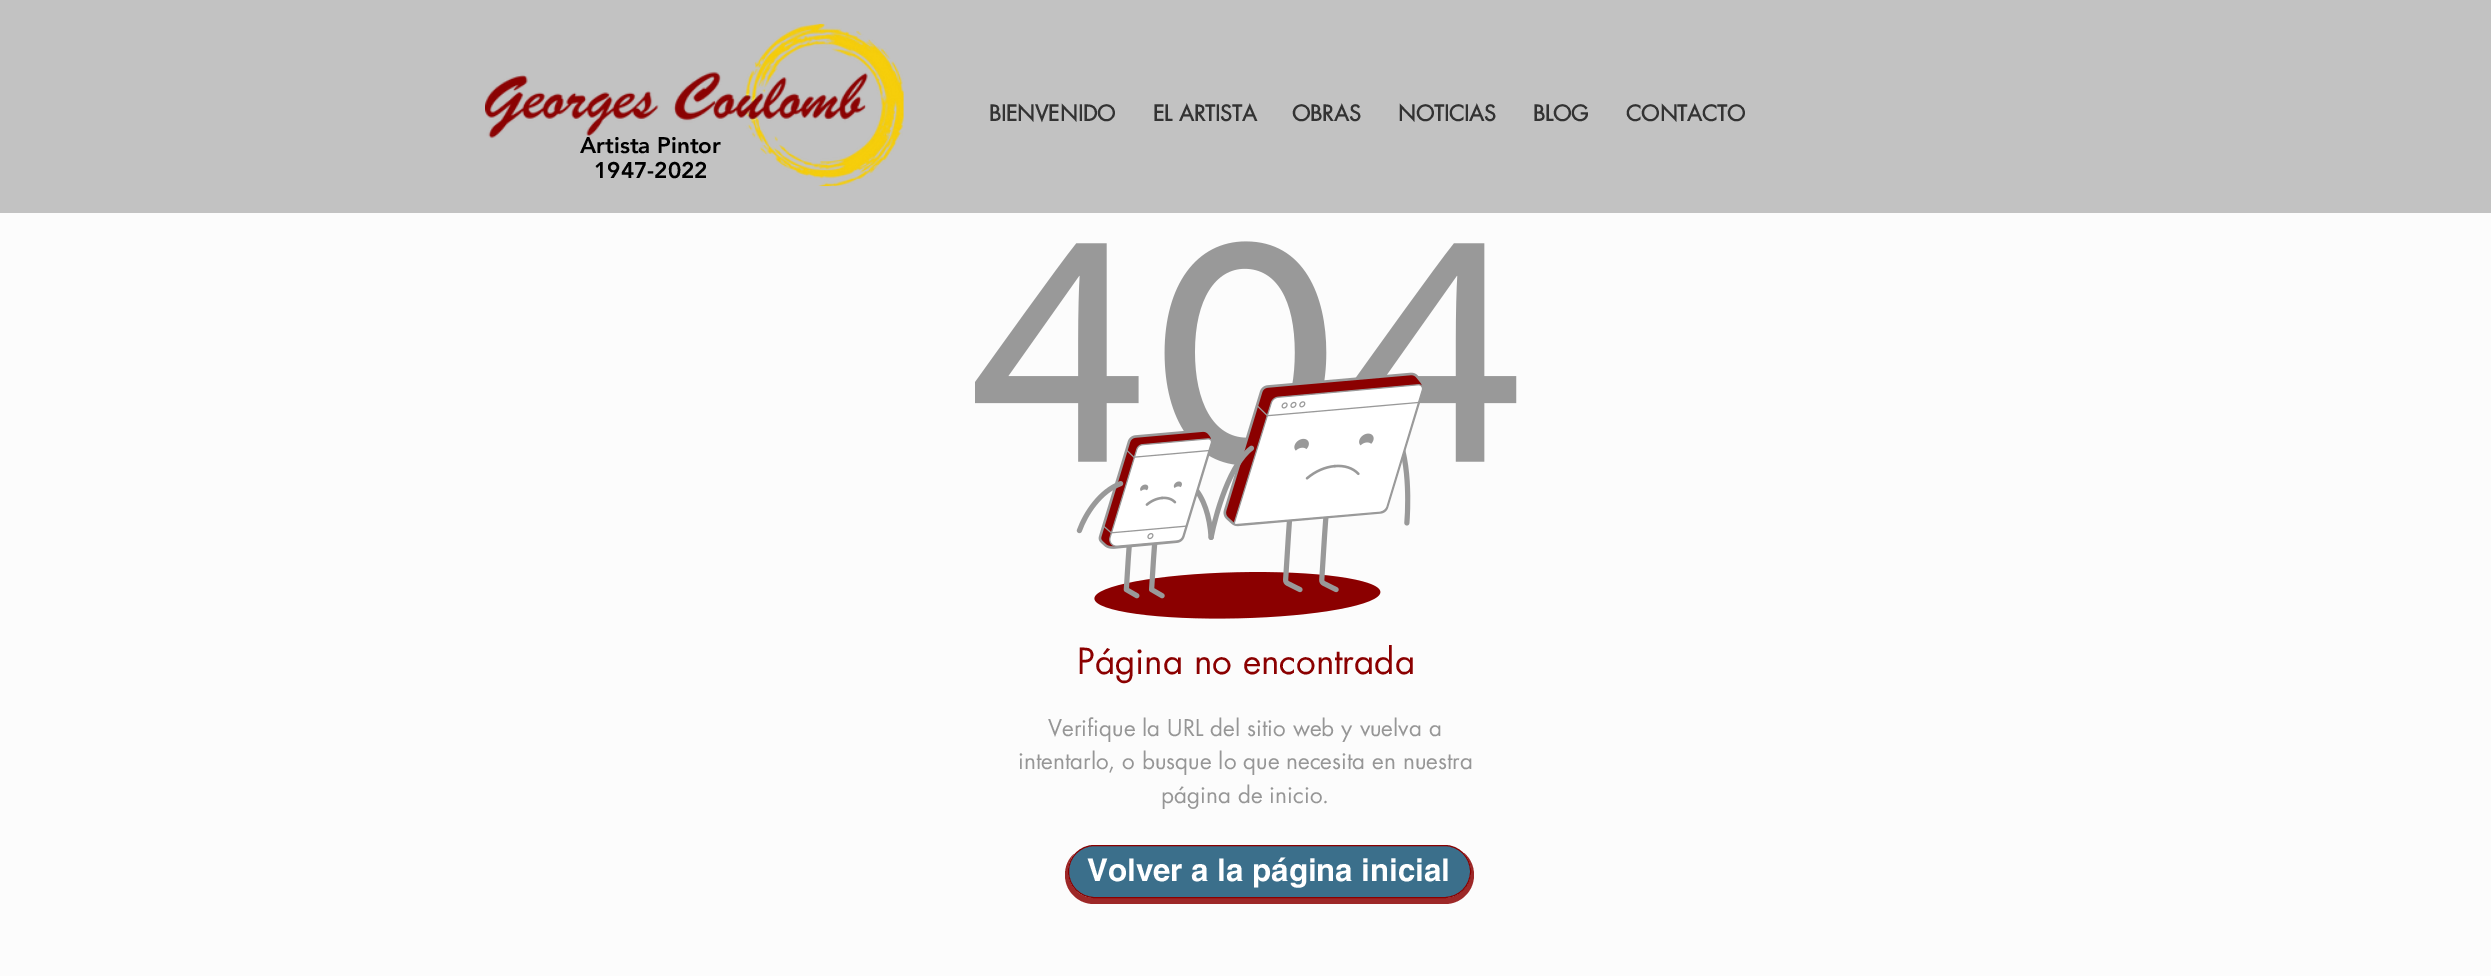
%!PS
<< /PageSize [2491 976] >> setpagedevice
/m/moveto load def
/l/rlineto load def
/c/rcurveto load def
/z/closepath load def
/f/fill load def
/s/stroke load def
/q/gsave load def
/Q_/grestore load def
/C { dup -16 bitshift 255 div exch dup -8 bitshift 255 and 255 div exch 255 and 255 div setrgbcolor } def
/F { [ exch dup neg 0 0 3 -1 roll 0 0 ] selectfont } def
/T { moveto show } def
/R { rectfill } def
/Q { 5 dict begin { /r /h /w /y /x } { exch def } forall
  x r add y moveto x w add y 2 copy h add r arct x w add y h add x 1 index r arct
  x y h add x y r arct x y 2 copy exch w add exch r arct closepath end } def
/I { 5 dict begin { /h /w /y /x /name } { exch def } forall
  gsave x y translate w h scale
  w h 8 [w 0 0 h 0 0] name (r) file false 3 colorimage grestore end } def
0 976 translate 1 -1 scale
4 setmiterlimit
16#FCFCFC C
0 0 2491 976 R
16#C2C2C2 C
0 0 2491 213 R
(1.rgb) 485 23 419 164 I
/futura-Bold 21.25 F
16#333333 C
(BIENVENIDO) 989 121 T
(EL ARTISTA) 1153 121 T
(OBRAS) 1292 121 T
(NOTICIAS) 1398 121 T
(BLOG) 1533 121 T
(CONTACTO) 1626 121 T
/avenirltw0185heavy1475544-Black 22.5 F
16#000000 C
(Artista Pintor) 580 153 T
(1947-2022) 594 178 T
(2.rgb) 975 241 542 378 I
/futura-Regular 35 F
16#8B0000 C
(Página no encontrada) 1077 674 T
/futura-Regular 22.5 F
16#969696 C
(Verifique la URL del sitio web y vuelva a) 1048 736 T
(intentarlo, o busque lo que necesita en nuestra) 1018 769 T
(página de inicio.) 1161 803 T
16#9D2828 C
1074 854 m -6 5 -9 13 -9 21 c 0 16 13 29 29 29 c 351 0 l 16 0 29 -13 29 -29 c 0 -9 -4 -17 -10 -22 c 4 5 7 11 7 18 c 0 15 -12 27 -26 27 c -351 0 l -15 0 -26 -12 -26 -27 c 0 -6 2 -12 6 -17 c z f
16#3B6F8B C
1068.5 845.5 402 52 26 Q q f Q_
16#8B0000 C
s
/helvetica-Bold 31.25 F
16#FFFFFF C
(Volver a la página inicial) 1087 881 T
showpage
